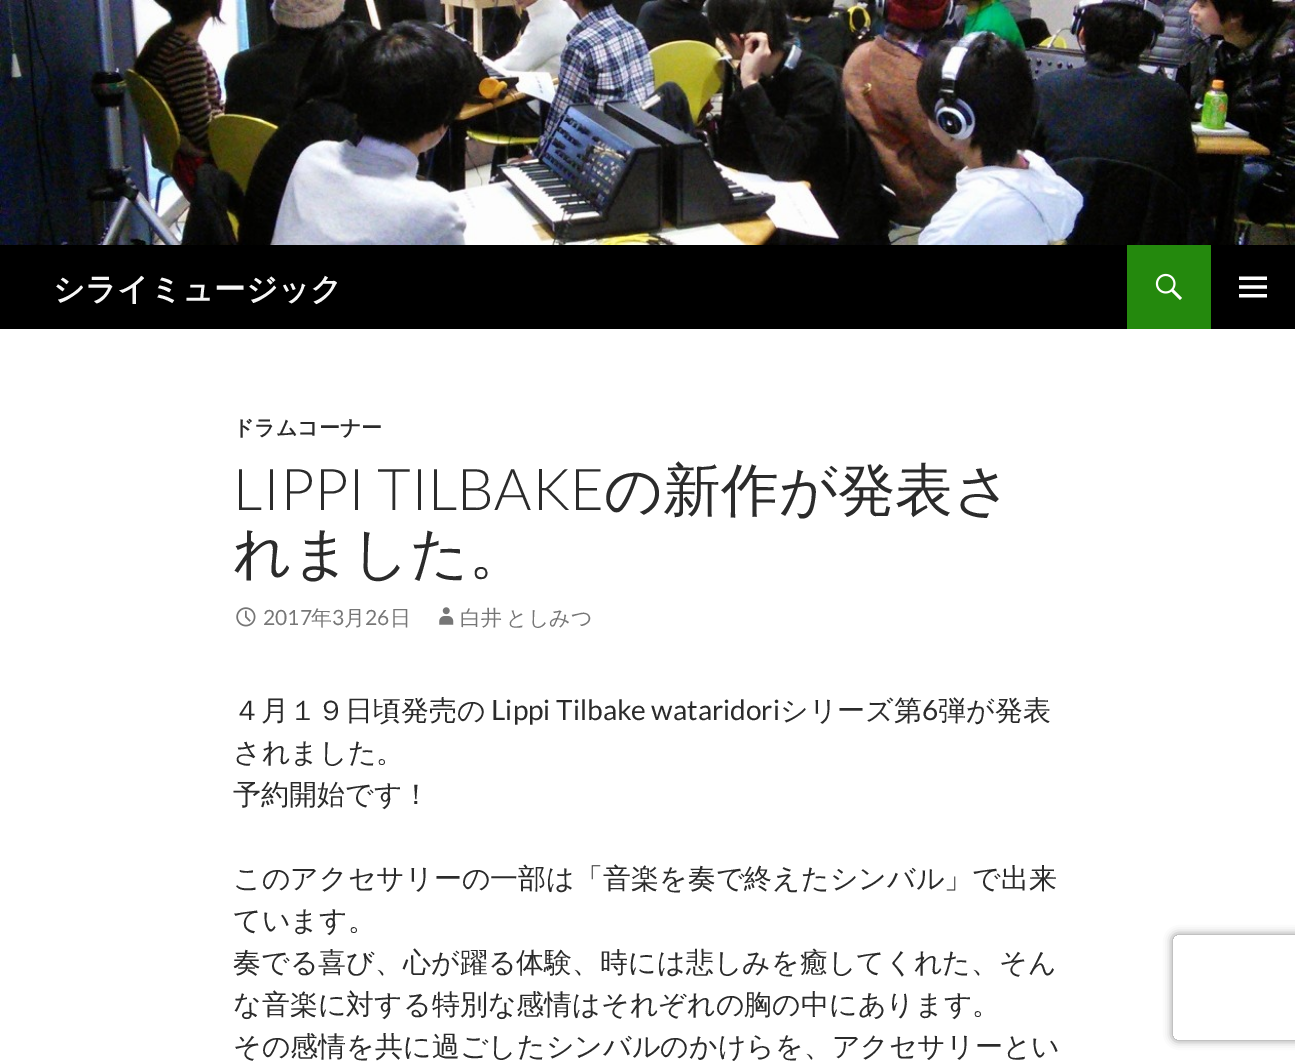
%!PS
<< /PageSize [1295 1063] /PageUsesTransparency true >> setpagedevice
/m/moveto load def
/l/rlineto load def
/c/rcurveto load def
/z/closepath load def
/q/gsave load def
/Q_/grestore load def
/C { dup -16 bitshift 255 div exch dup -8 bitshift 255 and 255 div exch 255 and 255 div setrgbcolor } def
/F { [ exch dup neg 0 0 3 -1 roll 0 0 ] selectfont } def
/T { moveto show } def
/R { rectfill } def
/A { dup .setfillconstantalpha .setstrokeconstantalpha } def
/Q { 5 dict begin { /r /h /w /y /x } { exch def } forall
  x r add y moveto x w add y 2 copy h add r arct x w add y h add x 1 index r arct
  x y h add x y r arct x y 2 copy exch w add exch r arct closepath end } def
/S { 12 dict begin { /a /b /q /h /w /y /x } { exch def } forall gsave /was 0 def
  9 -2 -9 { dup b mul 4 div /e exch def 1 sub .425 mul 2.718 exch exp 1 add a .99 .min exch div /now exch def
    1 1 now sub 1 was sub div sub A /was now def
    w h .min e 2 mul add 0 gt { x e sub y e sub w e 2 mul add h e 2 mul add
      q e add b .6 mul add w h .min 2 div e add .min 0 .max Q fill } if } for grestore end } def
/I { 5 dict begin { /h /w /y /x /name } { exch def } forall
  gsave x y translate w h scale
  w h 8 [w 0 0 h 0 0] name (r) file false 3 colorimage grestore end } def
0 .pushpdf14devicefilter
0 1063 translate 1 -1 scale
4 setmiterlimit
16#FFFFFF C
0 0 1295 1063 R
(1.rgb) 0 0 1295 245 I
16#000000 C
0 245 1295 84 R
/WenQuanYiZenHei-Bold 31.5 F
16#F7F7F7 C
(シライミュージック) 53 300 T
16#24890D C
1127 245 84 84 R
(2.rgb) 1155 273 27 27 I
(3.rgb) 1239 276 28 22 I
/WenQuanYiZenHei-Bold 21 F
16#2B2B2B C
(ドラムコーナー) 233 435 T
/Lato-Light 57.75 F
(LIPPI TILBAKE) 233 510 T
/WenQuanYiZenHei-Medium 57.75 F
(の新作が発表さ) 604 510 T
(れました。) 233 573 T
(4.rgb) 236 607 20 20 I
/Lato-Regular 21 F
16#767676 C
(2017) 263 625 T
/WenQuanYiZenHei-Medium 21 F
(年) 311 625 T
/Lato-Regular 21 F
(3) 332 625 T
/WenQuanYiZenHei-Medium 21 F
(月) 344 625 T
/Lato-Regular 21 F
(26) 365 625 T
/WenQuanYiZenHei-Medium 21 F
(日) 390 625 T
(5.rgb) 439 607 15 18 I
460 625 m -2 0 32 (白井 としみつ) widthshow
/WenQuanYiZenHei-Medium 28 F
16#2B2B2B C
(４月１９日頃発売の) 233 720 T
/Lato-Regular 28 F
(Lippi Tilbake wataridori) 491 720 T
/WenQuanYiZenHei-Medium 28 F
(シリーズ第) 780 720 T
/Lato-Regular 28 F
(6) 922 720 T
/WenQuanYiZenHei-Medium 28 F
(弾が発表) 938 720 T
(されました。) 233 762 T
(予約開始です！) 233 804 T
(このアクセサリーの一部は「音楽を奏で終えたシンバル」で出来) 233 888 T
(ています。) 233 930 T
(奏でる喜び、心が躍る体験、時には悲しみを癒してくれた、そん) 233 972 T
(な音楽に対する特別な感情はそれぞれの胸の中にあります。) 233 1014 T
(その感情を共に過ごしたシンバルのかけらを、アクセサリーとい) 233 1056 T
q
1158 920 m 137 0 l 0 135 l -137 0 l z 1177 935 m 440 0 l 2 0 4 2 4 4 c 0 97 l 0 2 -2 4 -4 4 c -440 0 l -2 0 -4 -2 -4 -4 c 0 -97 l 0 -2 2 -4 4 -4 c z eoclip newpath
16#808080 C
1173 935 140 105 4 4.5 1 S
Q_
.poppdf14devicefilter showpage
